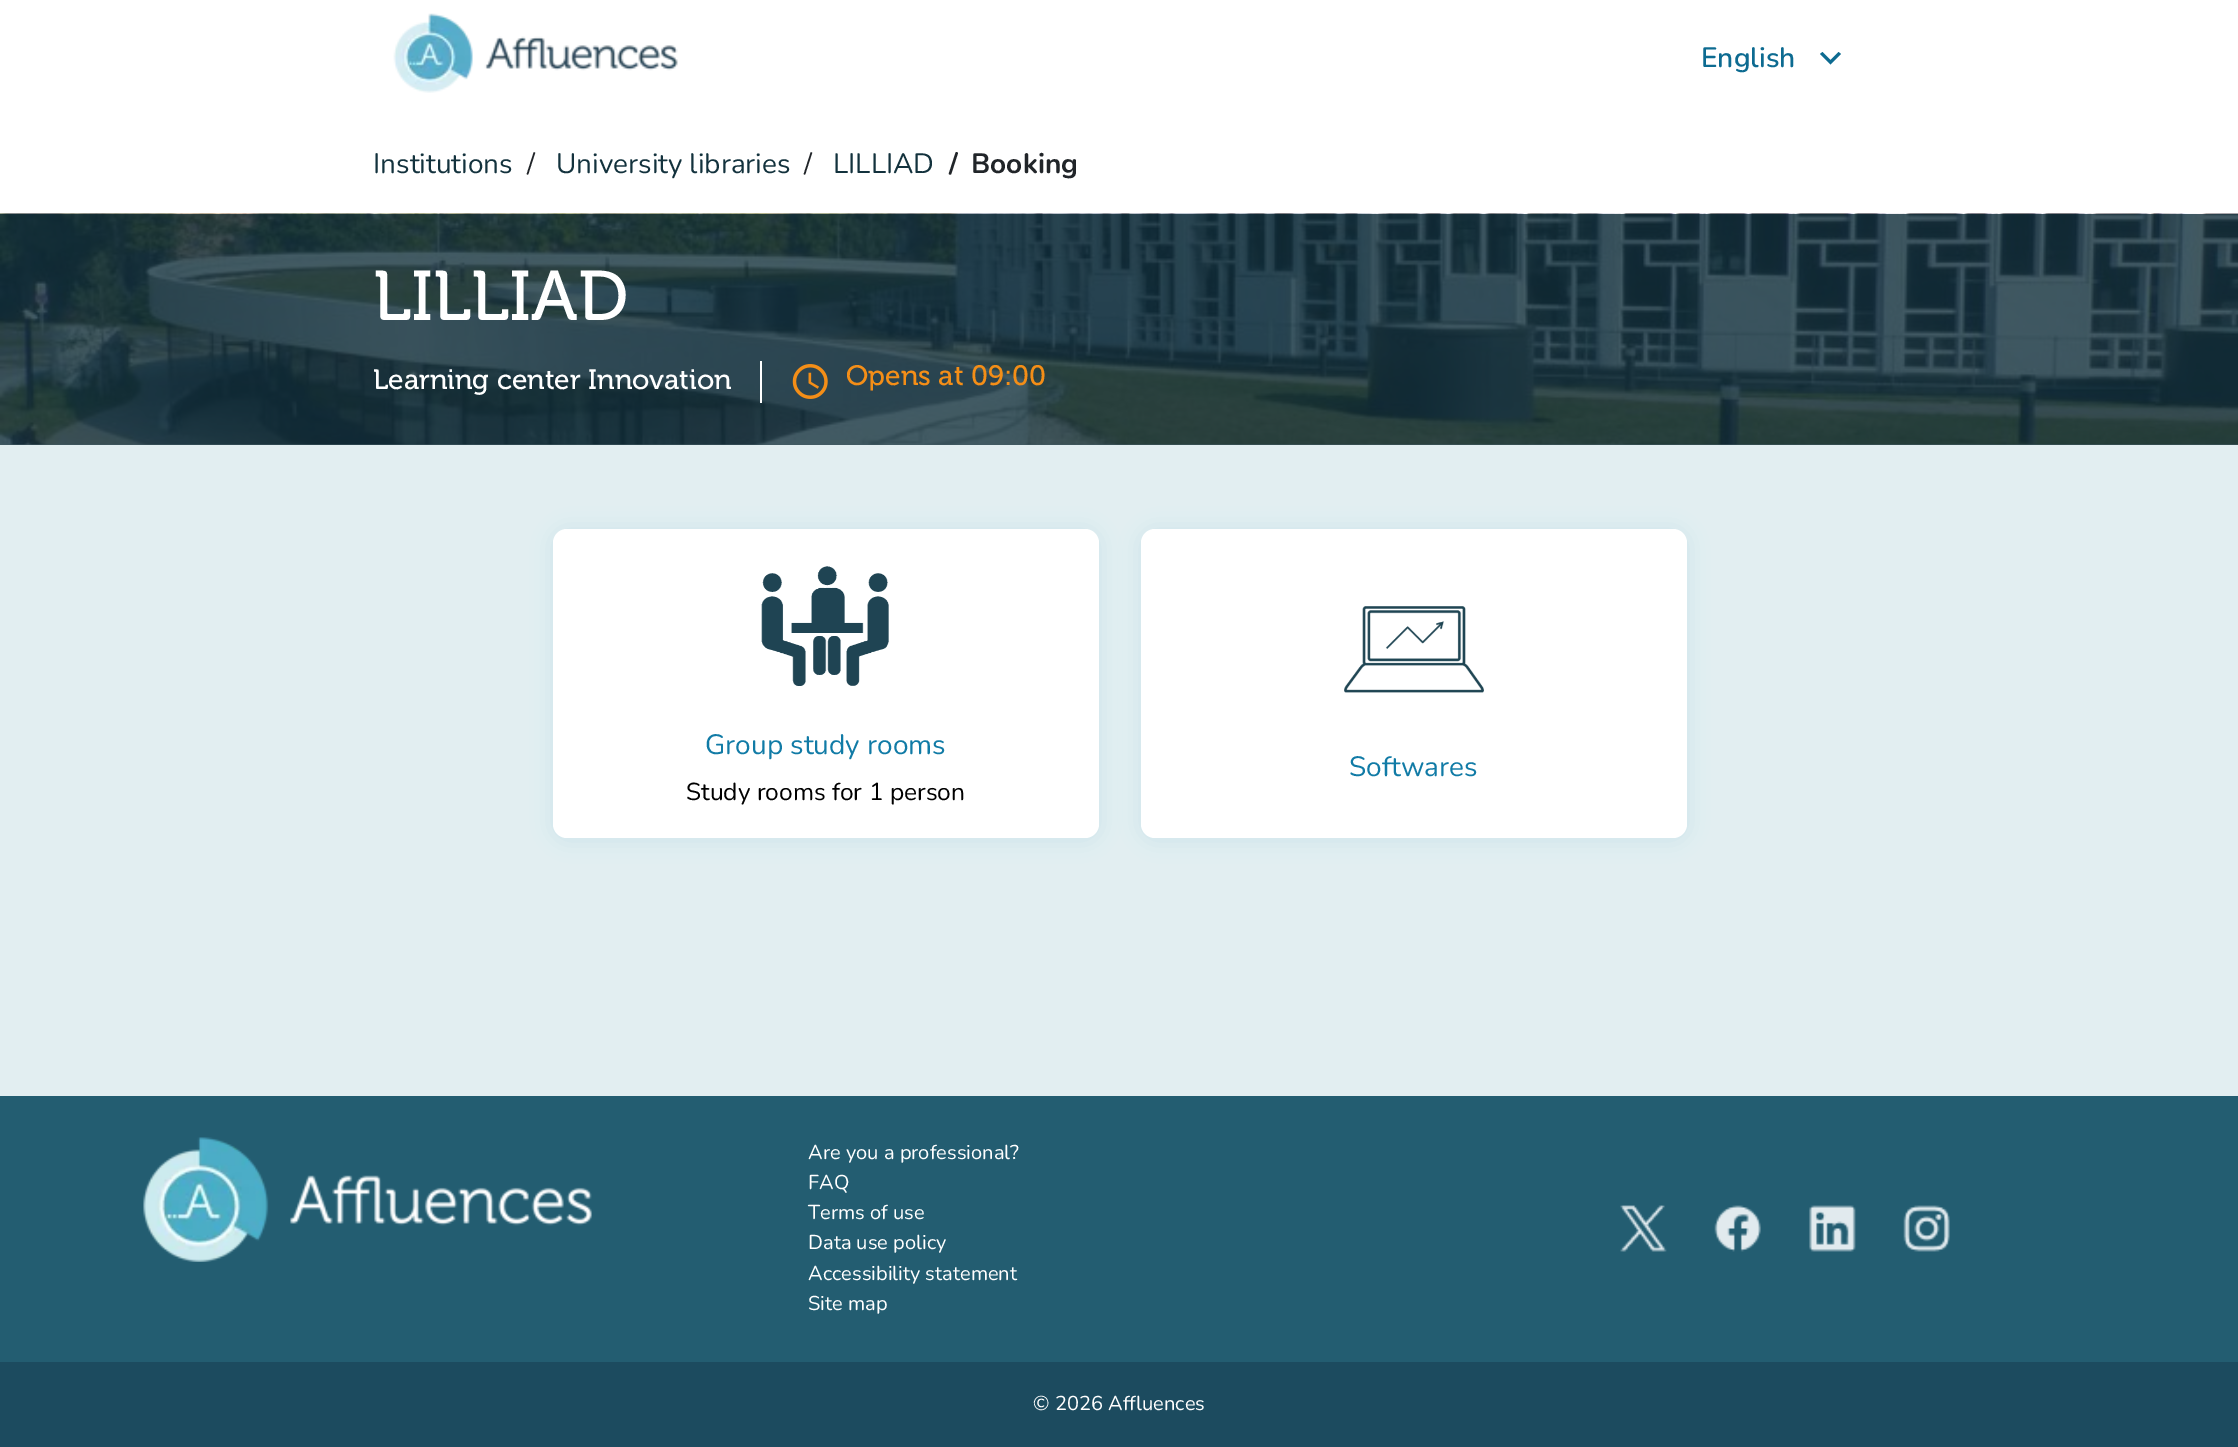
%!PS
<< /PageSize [2238 1447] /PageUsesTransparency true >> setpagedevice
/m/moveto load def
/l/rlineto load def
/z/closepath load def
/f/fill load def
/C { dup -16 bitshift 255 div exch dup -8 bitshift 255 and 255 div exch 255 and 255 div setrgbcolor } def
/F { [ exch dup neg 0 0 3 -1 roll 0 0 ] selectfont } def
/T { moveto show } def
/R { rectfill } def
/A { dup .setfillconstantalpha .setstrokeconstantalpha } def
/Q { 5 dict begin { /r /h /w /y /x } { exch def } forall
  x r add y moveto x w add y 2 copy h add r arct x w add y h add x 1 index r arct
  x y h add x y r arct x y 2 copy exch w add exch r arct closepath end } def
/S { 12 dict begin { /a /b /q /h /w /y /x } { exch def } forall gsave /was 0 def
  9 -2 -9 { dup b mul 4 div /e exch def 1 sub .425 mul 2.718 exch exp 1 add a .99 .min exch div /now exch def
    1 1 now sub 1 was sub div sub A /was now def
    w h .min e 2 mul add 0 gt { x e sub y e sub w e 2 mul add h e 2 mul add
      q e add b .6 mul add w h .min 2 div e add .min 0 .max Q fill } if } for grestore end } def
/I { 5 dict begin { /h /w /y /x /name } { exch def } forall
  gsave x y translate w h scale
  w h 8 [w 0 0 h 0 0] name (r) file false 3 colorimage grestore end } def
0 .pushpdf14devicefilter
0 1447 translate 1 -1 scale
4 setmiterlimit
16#FFFFFF C
0 0 2238 1447 R
16#425B64 C
0 444 2238 1 R
(1.rgb) 393 13 285 80 I
/Nunito-SemiBold 28 F
16#0D6B91 C
(English) 1701 67 T
1822.5 52 m 8 8 l 8 -8 l 2.5 2 l -10.5 10.5 l -10.5 -10.5 l z f
/Nunito-Regular 28 F
16#13323D C
(Institutions) 373 173 T
16#212529 C
(/) 527 173 T
16#13323D C
(University libraries) 556 173 T
16#212529 C
(/) 804 173 T
16#13323D C
(LILLIAD) 833 173 T
/Nunito-Bold 28 F
16#212529 C
(/) 949 173 T
(Booking) 971 173 T
(2.rgb) 0 213 2238 232 I
/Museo-Regular 70 F
16#FFFFFF C
(LILLIAD) 373 320 T
/Museo-Regular 28 F
(Learning center Innovation) 373 389 T
760 361 2 42 R
(3.rgb) 792 364 36 35 I
16#F48E17 C
(Opens at 09:00) 846 385 T
16#E2EEF1 C
0 445 2238 651 R
16#117BA6 C
553 530 546 310 14 10.5 .1 S
16#FFFFFF C
553 529 546 309 14 Q f
(4.rgb) 761 566 128 120 I
/Nunito-Regular 28 F
16#117BA6 C
(Group study rooms) 705 754 T
/Nunito-Regular 24.5 F
16#000000 C
(Study rooms for 1 person) 686 800 T
16#117BA6 C
1141 530 546 310 14 10.5 .1 S
16#FFFFFF C
1141 529 546 309 14 Q f
(5.rgb) 1344 606 140 87 I
/Nunito-Regular 28 F
16#117BA6 C
(Softwares) 1349 776 T
16#235D71 C
0 1096 2238 266 R
(6.rgb) 143 1137 449 125 I
/Nunito-Regular 20.1 F
16#FFFFFF C
(Are you a professional?) 808 1159 T
(FAQ) 808 1189 T
(Terms of use) 808 1219 T
(Data use policy) 808 1249 T
(Accessibility statement) 808 1280 T
(Site map) 808 1310 T
(7.rgb) 1620 1205 47 47 I
(8.rgb) 1714 1205 47 47 I
(9.rgb) 1809 1205 47 47 I
(10.rgb) 1903 1205 47 47 I
16#1C4B5F C
0 1362 2238 85 R
16#FFFFFF C
(© 2026 Affluences) 1033 1410 T
.poppdf14devicefilter showpage
